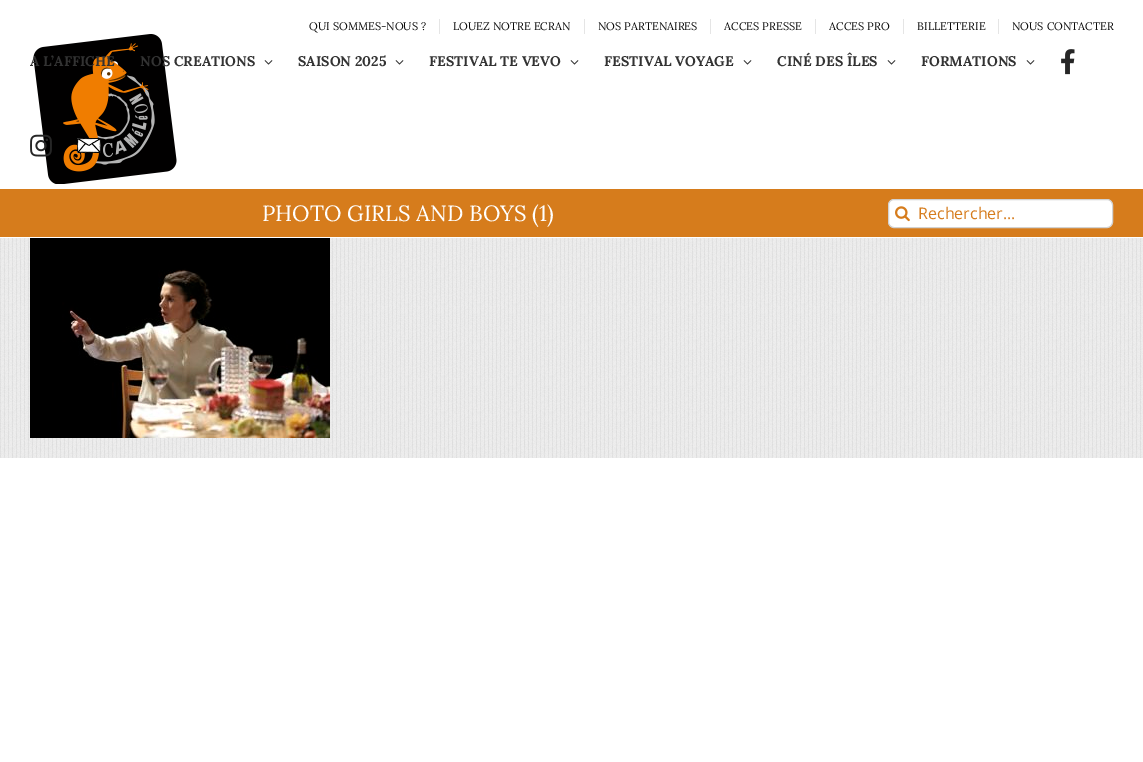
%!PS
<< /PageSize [1143 762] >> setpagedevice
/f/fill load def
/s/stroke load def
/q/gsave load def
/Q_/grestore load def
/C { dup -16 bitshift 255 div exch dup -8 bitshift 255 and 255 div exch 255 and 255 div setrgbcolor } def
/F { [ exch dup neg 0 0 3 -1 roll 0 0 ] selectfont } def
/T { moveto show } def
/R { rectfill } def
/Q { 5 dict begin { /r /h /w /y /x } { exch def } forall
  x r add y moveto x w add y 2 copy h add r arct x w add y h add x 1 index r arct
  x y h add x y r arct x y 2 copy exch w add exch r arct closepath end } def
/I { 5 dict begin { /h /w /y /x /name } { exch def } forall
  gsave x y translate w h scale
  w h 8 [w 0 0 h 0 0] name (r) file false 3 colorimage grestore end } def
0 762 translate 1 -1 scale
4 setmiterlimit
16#FFFFFF C
0 0 1143 762 R
/Lora-Regular 11 F
16#0A0A0A C
(QUI SOMMES-NOUS ?) 309 30 T
16#E5E5E5 C
439 19 1 15 R
16#0A0A0A C
(LOUEZ NOTRE ECRAN) 453 30 T
16#E5E5E5 C
584 19 1 15 R
16#0A0A0A C
(NOS PARTENAIRES) 598 30 T
16#E5E5E5 C
710 19 1 15 R
16#0A0A0A C
(ACCES PRESSE) 724 30 T
16#E5E5E5 C
815 19 1 15 R
16#0A0A0A C
(ACCES PRO) 829 30 T
16#E5E5E5 C
903 19 1 15 R
16#0A0A0A C
(BILLETTERIE) 917 30 T
16#E5E5E5 C
998 19 1 15 R
16#0A0A0A C
(NOUS CONTACTER) 1012 30 T
(1.rgb) 33 34 144 150 I
/Lora-Bold 14 F
16#333333 C
(A L’AFFICHE) 30 66 T
(NOS CREATIONS) 140 66 T
(2.rgb) 264 60 9 5 I
(SAISON 2025) 298 66 T
(2.rgb) 395 60 9 5 I
(FESTIVAL TE VEVO) 429 66 T
(2.rgb) 570 60 9 5 I
(FESTIVAL VOYAGE) 604 66 T
(2.rgb) 743 60 9 5 I
(CINÉ DES ÎLES) 777 66 T
(2.rgb) 887 60 9 5 I
(FORMATIONS) 921 66 T
(2.rgb) 1026 60 9 5 I
(3.rgb) 1061 49 14 26 I
(4.rgb) 30 134 22 23 I
(5.rgb) 77 138 24 15 I
16#D67C1C C
0 189 1143 48 R
/Lora-Regular 22 F
16#FFFFFF C
(PHOTO GIRLS AND BOYS \(1\)) 262 221 T
888.5 199.5 224 28 5.5 Q q f Q_
16#D2D2D2 C
s
(6.rgb) 895 206 15 16 I
/OpenSans-Regular 16 F
16#D67C1C C
(Rechercher...) 918 219 T
(7.rgb) 0 238 1143 220 I
(8.rgb) 30 238 300 200 I
showpage
